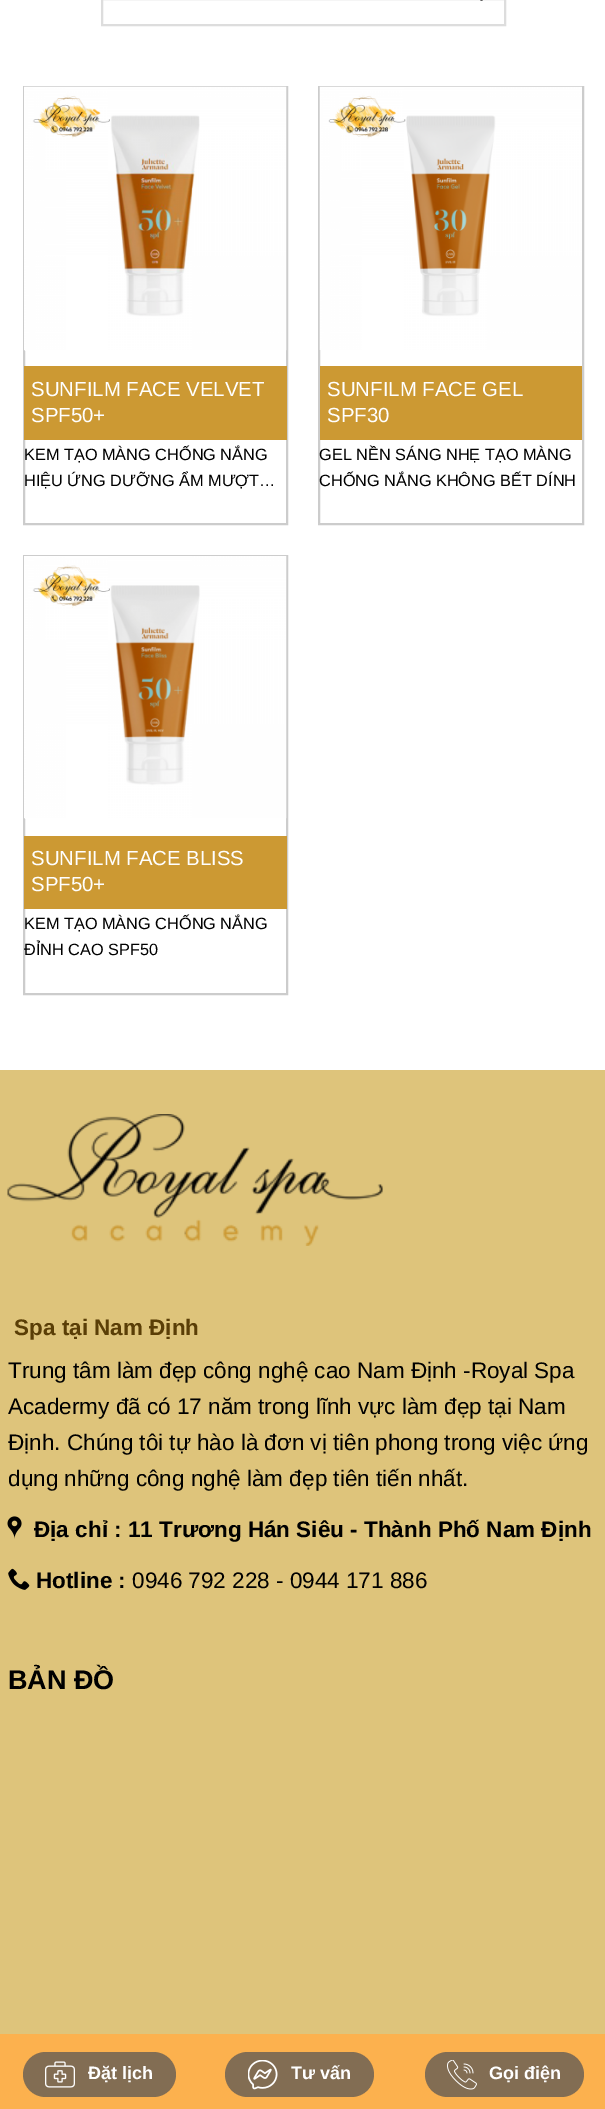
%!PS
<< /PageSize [605 2109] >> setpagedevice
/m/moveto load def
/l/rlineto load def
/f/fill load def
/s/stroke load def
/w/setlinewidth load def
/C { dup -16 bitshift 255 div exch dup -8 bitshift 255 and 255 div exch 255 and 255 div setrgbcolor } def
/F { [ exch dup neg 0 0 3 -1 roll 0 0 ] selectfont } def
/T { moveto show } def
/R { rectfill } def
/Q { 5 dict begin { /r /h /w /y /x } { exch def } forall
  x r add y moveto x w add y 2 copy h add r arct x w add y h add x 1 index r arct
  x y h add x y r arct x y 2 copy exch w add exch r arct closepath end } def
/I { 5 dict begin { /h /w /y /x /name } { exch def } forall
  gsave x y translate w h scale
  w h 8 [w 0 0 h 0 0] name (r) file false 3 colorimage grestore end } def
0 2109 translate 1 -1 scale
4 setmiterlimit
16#FFFFFF C
0 0 605 2109 R
16#333333 C
2 w
1 setlinecap
1 setlinejoin
475.5 -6 m 6 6 l 6 -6 l s
16#DDDDDD C
0 setlinecap
0 setlinejoin
102 -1 403 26 rectstroke
16#CCCCCC C
24 87 263 437 rectstroke
(1.rgb) 24 86 263 265 I
16#CC9933 C
24 366 263 74 R
/LiberationSans-Regular 20.4 F
16#FFFFFF C
(SUNFILM FACE VELVET) 31 396 T
(SPF50+) 31 422 T
/LiberationSans-Regular 16.3 F
16#000000 C
(KEM TẠO MÀNG CHỐNG NẮNG) 24 460 T
(HIỆU ỨNG DƯỠNG ẨM MƯỢT…) 24 486 T
16#CCCCCC C
319 87 264 437 rectstroke
(2.rgb) 319 86 263 264 I
16#CC9933 C
320 366 262 74 R
/LiberationSans-Regular 20.4 F
16#FFFFFF C
(SUNFILM FACE GEL) 327 396 T
(SPF30) 327 422 T
/LiberationSans-Regular 16.3 F
16#000000 C
(GEL NỀN SÁNG NHẸ TẠO MÀNG) 319 460 T
(CHỐNG NẮNG KHÔNG BẾT DÍNH) 319 486 T
16#CCCCCC C
24 556 263 438 rectstroke
(3.rgb) 24 556 263 263 I
16#CC9933 C
24 836 263 73 R
/LiberationSans-Regular 20.4 F
16#FFFFFF C
(SUNFILM FACE BLISS) 31 865 T
(SPF50+) 31 891 T
/LiberationSans-Regular 16.3 F
16#000000 C
(KEM TẠO MÀNG CHỐNG NẮNG) 24 929 T
(ĐỈNH CAO SPF50) 24 955 T
16#DEC47B C
0 1070 605 964 R
(4.rgb) 7 1114 376 132 I
/LiberationSans-Bold 22.5 F
16#5A3E06 C
(Spa tại Nam Định) 14 1335 T
/LiberationSans-Regular 22.5 F
16#000000 C
(Trung tâm làm đẹp công nghệ cao Nam Định -Royal Spa) 8 1378 T
(Acadermy đã có 17 năm trong lĩnh vực làm đẹp tại Nam) 8 1414 T
(Định. Chúng tôi tự hào là đơn vị tiên phong trong việc ứng) 8 1450 T
(dụng những công nghệ làm đẹp tiên tiến nhất.) 8 1486 T
(5.rgb) 7 1516 15 23 I
/LiberationSans-Bold 22.5 F
(Địa chỉ : 11 Trương Hán Siêu - Thành Phố Nam Định) 34 1537 T
(6.rgb) 8 1568 22 22 I
(Hotline :) 36 1588 T
/LiberationSans-Regular 22.5 F
(0946 792 228 - 0944 171 886) 132 1588 T
/LiberationSans-Bold 27 F
(BẢN ĐỒ) 8 1689 T
16#FCB14E C
0 2034 605 75 R
16#826D53 C
23 2052 153 45 22.5 Q f
(7.rgb) 45 2061 30 27 I
/LiberationSans-Bold 18 F
16#FFFFFF C
(Đặt lịch) 88 2079 T
16#826D53 C
225 2052 149 45 22.5 Q f
(8.rgb) 248 2060 30 30 I
16#FFFFFF C
(Tư vấn) 291 2079 T
16#826D53 C
425 2052 159 45 22.5 Q f
(9.rgb) 447 2060 30 30 I
16#FFFFFF C
(Gọi điện) 489 2079 T
showpage
